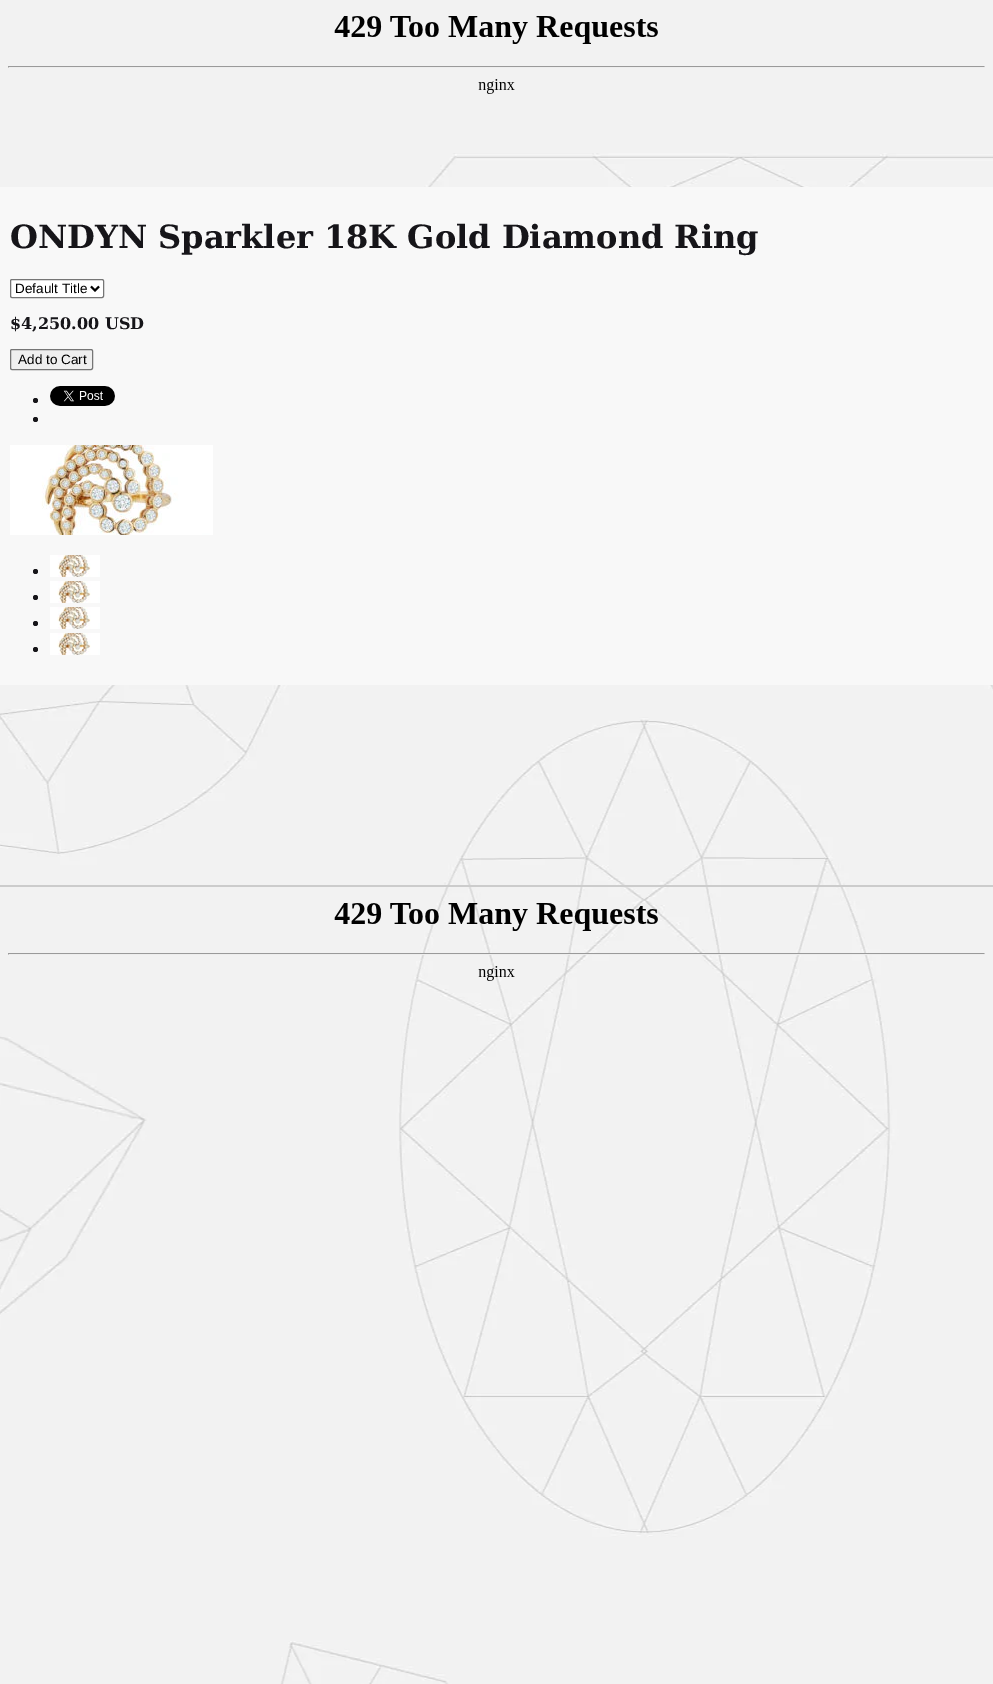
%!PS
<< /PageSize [993 1684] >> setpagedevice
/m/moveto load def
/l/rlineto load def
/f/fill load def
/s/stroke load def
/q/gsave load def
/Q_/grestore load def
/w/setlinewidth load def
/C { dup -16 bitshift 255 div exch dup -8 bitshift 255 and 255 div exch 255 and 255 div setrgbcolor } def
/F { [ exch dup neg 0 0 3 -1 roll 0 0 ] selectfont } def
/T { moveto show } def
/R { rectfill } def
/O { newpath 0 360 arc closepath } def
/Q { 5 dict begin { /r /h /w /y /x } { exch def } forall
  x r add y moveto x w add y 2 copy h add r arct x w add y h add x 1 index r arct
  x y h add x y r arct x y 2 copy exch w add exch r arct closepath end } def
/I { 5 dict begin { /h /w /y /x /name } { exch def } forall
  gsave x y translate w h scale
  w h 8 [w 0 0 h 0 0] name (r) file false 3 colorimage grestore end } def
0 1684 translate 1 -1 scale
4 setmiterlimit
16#FFFFFF C
0 0 993 1684 R
(1.rgb) 0 0 993 1684 I
(2.rgb) 8 16 977 78 I
16#F8F8F8 C
0 187 993 498 R
/DejaVuSerif-Bold 32 F
16#161519 C
(ONDYN Sparkler 18K Gold Diamond Ring) 10 248 T
16#FFFFFF C
10.5 279.5 93 18 1.5 Q q f Q_
16#767676 C
s
16#000000 C
2 w
91 286.5 m 4 4 l 4 -4 l s
/LiberationSans-Regular 13.5 F
(Default Title) 15 293 T
/DejaVuSerif-Bold 16 F
16#161519 C
($4,250.00 USD) 10 329 T
16#EFEFEF C
10.5 349.5 82 20 1.5 Q q f Q_
16#767676 C
1 w
s
/LiberationSans-Regular 13.5 F
16#000000 C
(Add to Cart) 18 364 T
16#161519 C
35.5 400.5 2.5 O f
(3.rgb) 50 386 65 20 I
35.5 419.5 2.5 O f
(4.rgb) 10 445 203 90 I
35.5 571.5 2.5 O f
(5.rgb) 50 555 50 22 I
35.5 597.5 2.5 O f
(5.rgb) 50 581 50 22 I
35.5 623.5 2.5 O f
(5.rgb) 50 607 50 22 I
35.5 649.5 2.5 O f
(5.rgb) 50 633 50 22 I
16#CCCCCC C
0 885 993 2 R
(6.rgb) 8 903 977 78 I
showpage
